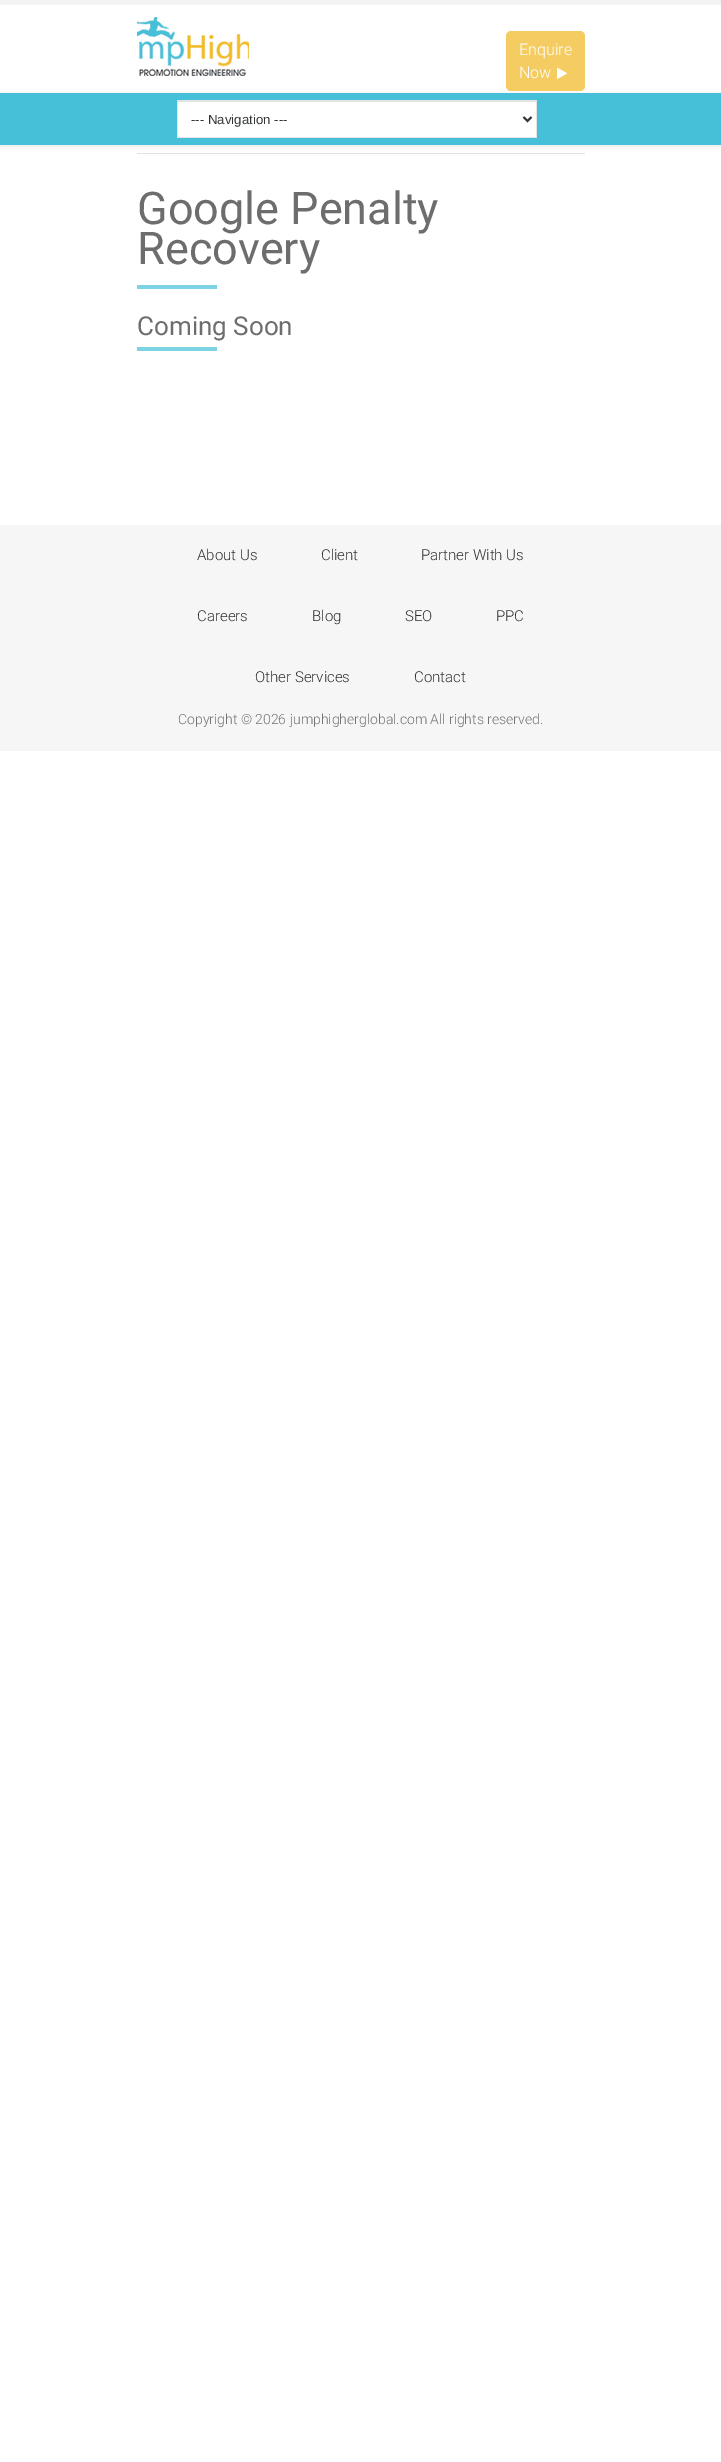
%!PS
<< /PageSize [721 2462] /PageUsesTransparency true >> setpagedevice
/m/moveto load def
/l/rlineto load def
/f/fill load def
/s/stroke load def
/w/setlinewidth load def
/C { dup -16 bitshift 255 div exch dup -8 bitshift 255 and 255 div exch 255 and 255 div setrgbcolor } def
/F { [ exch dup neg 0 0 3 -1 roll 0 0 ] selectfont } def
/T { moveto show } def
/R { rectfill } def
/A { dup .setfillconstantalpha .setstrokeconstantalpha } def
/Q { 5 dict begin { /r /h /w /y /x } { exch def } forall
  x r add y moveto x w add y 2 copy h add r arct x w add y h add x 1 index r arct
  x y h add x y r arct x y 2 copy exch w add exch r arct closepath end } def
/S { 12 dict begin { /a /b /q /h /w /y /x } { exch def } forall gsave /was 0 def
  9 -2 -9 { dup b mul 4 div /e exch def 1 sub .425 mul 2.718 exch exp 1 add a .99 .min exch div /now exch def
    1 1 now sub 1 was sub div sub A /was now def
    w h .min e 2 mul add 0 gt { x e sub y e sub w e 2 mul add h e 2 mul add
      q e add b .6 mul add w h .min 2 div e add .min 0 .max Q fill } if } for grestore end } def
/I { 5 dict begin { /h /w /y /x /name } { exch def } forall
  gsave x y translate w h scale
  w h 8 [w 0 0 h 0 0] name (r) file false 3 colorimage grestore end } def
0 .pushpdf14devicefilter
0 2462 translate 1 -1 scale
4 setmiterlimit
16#FFFFFF C
0 0 721 2462 R
16#F3F3F3 C
0 0 721 5 R
(1.rgb) 137 17 112 59 I
16#000000 C
0 94 721 52 0 2.5 .1 S
16#F5CC62 C
506 31 79 60 5 Q f
/Roboto-Light 16 F
16#FFFFFF C
(Enquire) 519 55 T
(Now) 519 78 T
(2.rgb) 557 67 11 12 I
16#46BFD8 C
0 93 721 52 R
16#FFFFFF C
178 102 358 35 R
16#E3E3E3 C
177 100 360 2 R
536 100 1 38 R
177 137 360 1 R
177 100 1 38 R
16#333639 C
2 w
523.5 117 m 4 4 l 4 -4 l s
/LiberationSans-Regular 13.25 F
(--- Navigation ---) 191 124 T
16#E1E1E1 C
137 153 448 1 R
/Roboto-Regular 45 F
16#6D6D6D C
(Google Penalty) 137 224 T
(Recovery) 137 264 T
16#7DD2E4 C
137 285 80 4 R
/Roboto-Regular 26 F
16#6D6D6D C
(Coming Soon) 137 335 T
16#7DD2E4 C
137 347 80 4 R
16#F6F6F6 C
0 525 721 226 R
/Roboto-Light 15 F
16#313030 C
(About Us) 197 560 T
(Client) 321 560 T
(Partner With Us) 421 560 T
(Careers) 197 621 T
(Blog) 312 621 T
(SEO) 405 621 T
(PPC) 496 621 T
(Other Services) 255 682 T
(Contact) 414 682 T
/Roboto-Light 14 F
16#737373 C
(Copyright © 2026 jumphigherglobal.com All rights reserved.) 178 724 T
.poppdf14devicefilter showpage
